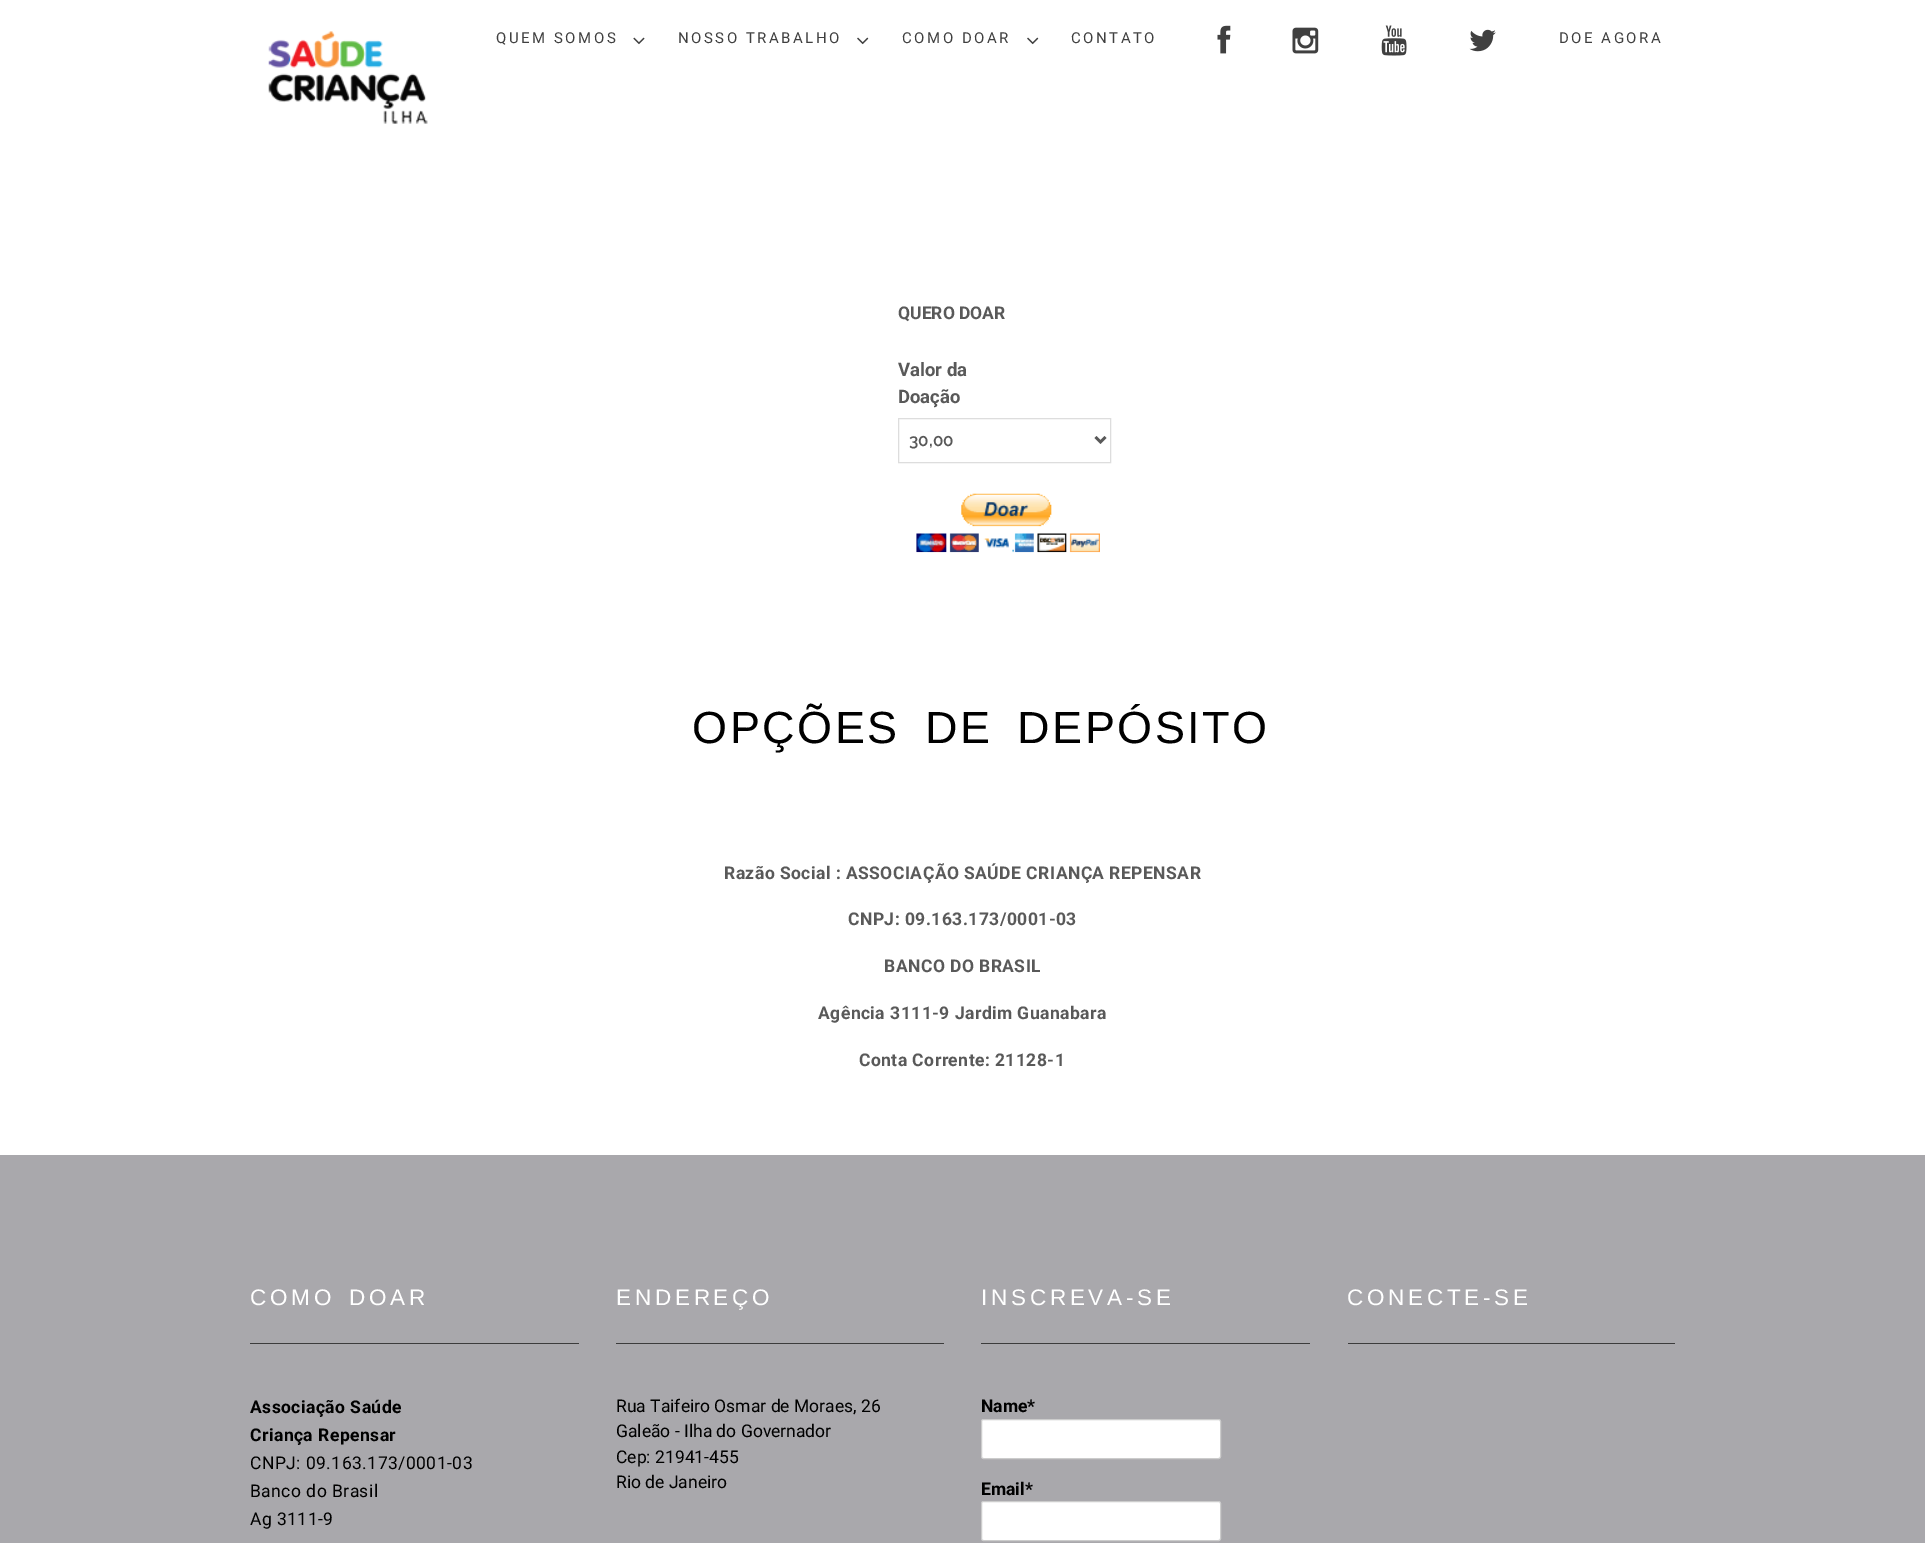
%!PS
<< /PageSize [1925 1543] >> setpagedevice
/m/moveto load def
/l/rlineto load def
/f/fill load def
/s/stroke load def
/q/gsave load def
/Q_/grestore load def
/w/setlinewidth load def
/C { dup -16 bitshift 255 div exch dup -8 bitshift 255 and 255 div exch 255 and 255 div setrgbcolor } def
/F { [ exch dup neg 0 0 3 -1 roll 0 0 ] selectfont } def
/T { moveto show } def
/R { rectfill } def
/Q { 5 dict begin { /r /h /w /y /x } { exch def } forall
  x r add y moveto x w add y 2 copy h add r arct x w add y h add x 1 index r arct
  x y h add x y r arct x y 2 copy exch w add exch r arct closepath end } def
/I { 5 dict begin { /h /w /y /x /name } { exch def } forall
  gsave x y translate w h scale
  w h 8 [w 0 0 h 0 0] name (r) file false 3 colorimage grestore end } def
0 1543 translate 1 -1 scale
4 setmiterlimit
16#FFFFFF C
0 0 1925 1543 R
(1.rgb) 268 31 160 93 I
/Roboto-Regular 15 F
16#404040 C
496 43 m 2.5 0 (QUEM SOMOS) ashow
(2.rgb) 633 37 12 8 I
678 43 m 2.5 0 (NOSSO TRABALHO) ashow
(3.rgb) 857 37 12 8 I
902 43 m 2.5 0 (COMO DOAR) ashow
(3.rgb) 1027 37 12 8 I
1071 43 m 2.5 0 (CONTATO) ashow
(4.rgb) 1217 25 14 29 I
(5.rgb) 1292 27 27 27 I
(6.rgb) 1381 25 26 31 I
(7.rgb) 1469 29 27 23 I
1559 43 m 2.5 0 (DOE AGORA) ashow
/Roboto-Bold 17.5 F
16#595959 C
(QUERO DOAR) 898 319 T
/Roboto-Bold 18.5 F
(Valor da) 898 376 T
(Doação) 898 403 T
16#DDDDDD C
898.5 418.5 212 44 rectstroke
16#595959 C
2.5 w
1095.5 437 m 5 5 l 5 -5 l s
/Raleway-SemiBold 17 F
(30,00) 909 446 T
(8.rgb) 916 493 184 60 I
/LiberationSans-Regular 45 F
16#000000 C
692 743 m 10 0 32 2.5 0 (OPÇÕES DE DEPÓSITO) awidthshow
/Roboto-Bold 17.5 F
16#595959 C
724 879 m .45 0 (Razão Social : ASSOCIAÇÃO SAÚDE CRIANÇA REPENSAR) ashow
848 925 m .45 0 (CNPJ: 09.163.173/0001-03) ashow
884 972 m .45 0 (BANCO DO BRASIL) ashow
818 1019 m .45 0 (Agência 3111-9 Jardim Guanabara) ashow
859 1066 m .45 0 (Conta Corrente: 21128-1) ashow
16#A9A8AC C
0 1155 1925 388 R
16#3C3C3C C
250 1343 329 1 R
/LiberationSans-Regular 22.5 F
16#FFFFFF C
250 1305 m 4 0 32 3.75 0 (COMO DOAR) awidthshow
/Roboto-Bold 17.5 F
16#000000 C
250 1413 m .45 0 (Associação Saúde) ashow
250 1441 m .45 0 (Criança Repensar) ashow
/Roboto-Regular 17.5 F
250 1469 m .45 0 (CNPJ: 09.163.173/0001-03) ashow
250 1497 m .45 0 (Banco do Brasil) ashow
250 1525 m .45 0 (Ag 3111-9) ashow
16#3C3C3C C
616 1343 328 1 R
/LiberationSans-Regular 22.5 F
16#FFFFFF C
616 1305 m 3.75 0 (ENDEREÇO) ashow
/Roboto-Regular 17.5 F
16#000000 C
(Rua Taifeiro Osmar de Moraes, 26) 616 1412 T
(Galeão - Ilha do Governador) 616 1437 T
(Cep: 21941-455) 616 1463 T
(Rio de Janeiro) 616 1488 T
16#3C3C3C C
981 1343 329 1 R
/LiberationSans-Regular 22.5 F
16#FFFFFF C
981 1305 m 3.75 0 (INSCREVA-SE) ashow
/Roboto-Bold 17.5 F
16#000000 C
(Name*) 981 1412 T
16#FFFFFF C
981.5 1419.5 239 39 2 Q q f Q_
16#CCCCCC C
1 w
s
16#000000 C
(Email*) 981 1495 T
16#FFFFFF C
981.5 1501.5 239 39 2 Q q f Q_
16#CCCCCC C
s
16#3C3C3C C
1348 1343 327 1 R
/LiberationSans-Regular 22.5 F
16#FFFFFF C
1347 1305 m 3.75 0 (CONECTE-SE) ashow
showpage
